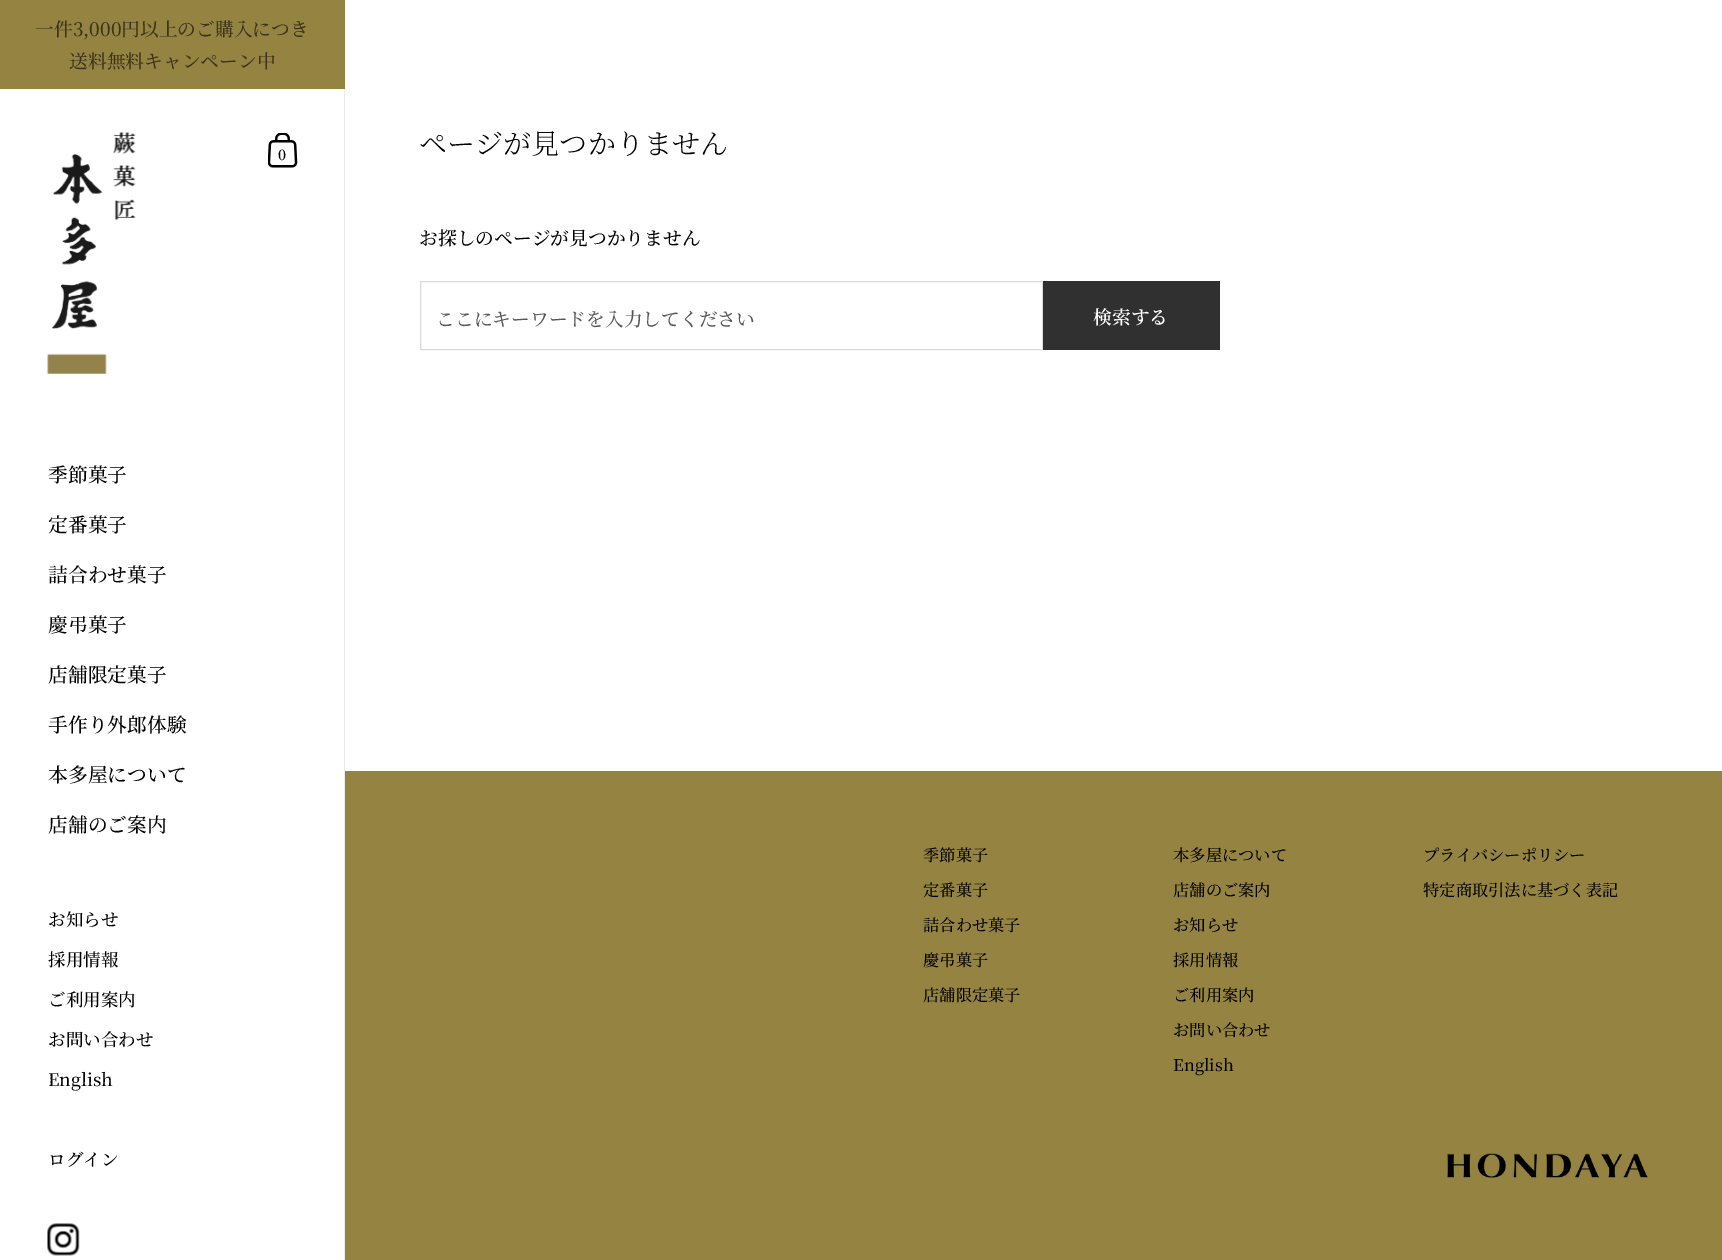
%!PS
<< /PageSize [1722 1260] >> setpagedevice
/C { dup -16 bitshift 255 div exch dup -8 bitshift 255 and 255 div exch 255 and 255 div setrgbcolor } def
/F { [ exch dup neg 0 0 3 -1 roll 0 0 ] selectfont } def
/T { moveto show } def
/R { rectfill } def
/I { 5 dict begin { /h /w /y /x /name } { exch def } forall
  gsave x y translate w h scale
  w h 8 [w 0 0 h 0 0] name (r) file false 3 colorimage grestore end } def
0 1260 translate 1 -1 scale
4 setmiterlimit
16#FFFFFF C
0 0 1722 1260 R
16#958342 C
0 0 345 89 R
/NotoSerifJP-Medium 18.75 F
16#3C341A C
(一件3,000円以上のご購入につき) 35 36 T
(送料無料キャンペーン中) 69 68 T
16#EBEBEB C
344 89 1 1171 R
(1.rgb) 47 132 89 242 I
(2.rgb) 268 133 30 35 I
/NotoSerifJP-SemiBold 14 F
16#000000 C
(0) 278 160 T
/NotoSerifJP-Medium 19.75 F
(季節菓子) 48 482 T
(定番菓子) 48 532 T
(詰合わせ菓子) 48 582 T
(慶弔菓子) 48 632 T
(店舗限定菓子) 48 682 T
(手作り外郎体験) 48 732 T
(本多屋について) 48 782 T
(店舗のご案内) 48 832 T
/NotoSerifJP-Medium 17.5 F
(お知らせ) 48 926 T
(採用情報) 48 966 T
(ご利用案内) 48 1006 T
(お問い合わせ) 48 1046 T
(English) 48 1086 T
(ログイン) 48 1166 T
(3.rgb) 47 1223 33 33 I
/NotoSerifJP-Light 28.1 F
(ページが見つかりません) 419 154 T
/NotoSerifJP-Medium 18.75 F
(お探しのページが見つかりません) 419 245 T
16#DBDBDB C
420.5 281.5 622 68 rectstroke
16#575757 C
(ここにキーワードを入力してください) 436 326 T
16#303030 C
1043 281 177 69 R
/NotoSerifJP-SemiBold 18.75 F
16#FFFFFF C
(検索する) 1093 324 T
16#958342 C
345 771 1377 489 R
/NotoSerifJP-Medium 16.25 F
16#000000 C
(季節菓子) 923 861 T
(定番菓子) 923 896 T
(詰合わせ菓子) 923 931 T
(慶弔菓子) 923 966 T
(店舗限定菓子) 923 1001 T
(本多屋について) 1173 861 T
(店舗のご案内) 1173 896 T
(お知らせ) 1173 931 T
(採用情報) 1173 966 T
(ご利用案内) 1173 1001 T
(お問い合わせ) 1173 1036 T
(English) 1173 1071 T
(プライバシーポリシー) 1423 861 T
(特定商取引法に基づく表記) 1423 896 T
(4.rgb) 1447 1153 201 25 I
showpage
